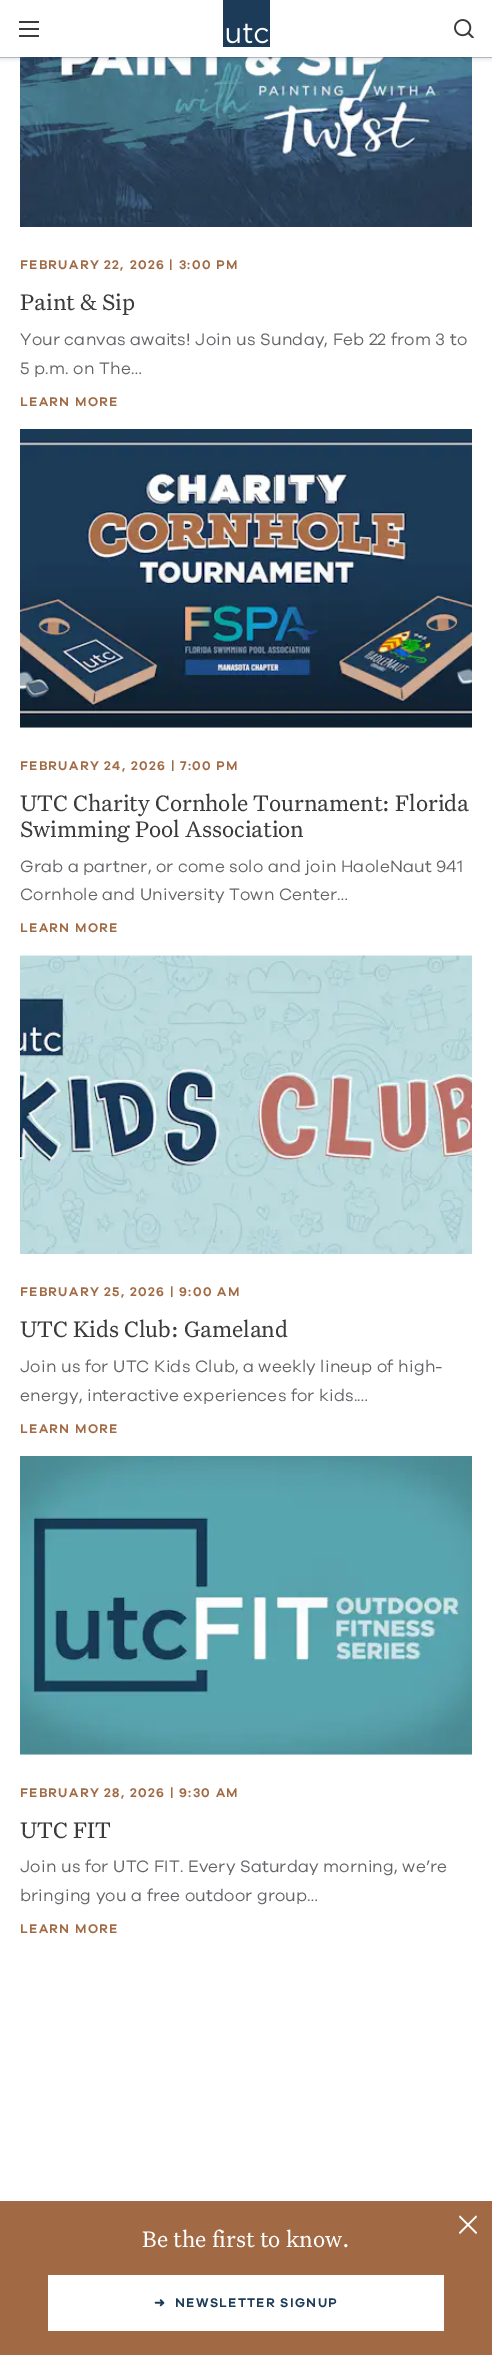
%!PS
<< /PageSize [492 2355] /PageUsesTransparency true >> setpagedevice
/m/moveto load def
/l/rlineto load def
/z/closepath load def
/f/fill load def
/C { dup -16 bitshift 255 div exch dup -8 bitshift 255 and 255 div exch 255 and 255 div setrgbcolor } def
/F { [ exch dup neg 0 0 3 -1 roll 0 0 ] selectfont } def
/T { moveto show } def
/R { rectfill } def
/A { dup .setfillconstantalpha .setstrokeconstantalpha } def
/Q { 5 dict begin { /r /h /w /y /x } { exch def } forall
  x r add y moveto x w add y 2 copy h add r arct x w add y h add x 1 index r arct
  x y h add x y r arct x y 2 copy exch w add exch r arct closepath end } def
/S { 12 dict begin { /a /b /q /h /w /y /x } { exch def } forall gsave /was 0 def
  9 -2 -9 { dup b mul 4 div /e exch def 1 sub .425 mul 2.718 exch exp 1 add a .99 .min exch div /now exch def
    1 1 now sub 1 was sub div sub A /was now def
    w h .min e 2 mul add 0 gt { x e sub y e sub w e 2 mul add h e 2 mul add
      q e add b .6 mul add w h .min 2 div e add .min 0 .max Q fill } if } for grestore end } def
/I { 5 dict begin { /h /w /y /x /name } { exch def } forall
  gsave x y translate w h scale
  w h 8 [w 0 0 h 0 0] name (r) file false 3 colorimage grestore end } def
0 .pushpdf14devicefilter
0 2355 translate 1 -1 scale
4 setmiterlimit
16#FFFFFF C
0 0 492 2355 R
(3.rgb) 20 57 452 170 I
16#191B2F C
0 0 492 57 0 3 .3 S
0.25 A
16#1B3B58 C
0 57 492 1 R
1 A
16#FFFFFF C
0 0 492 57 R
16#3B3B3C C
19 35 20 2 R
19 21 20 2 R
19 28 20 2 R
(1.rgb) 223 0 47 47 I
(2.rgb) 454 19 20 19 I
/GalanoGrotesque-SemiBold 13 F
16#A16A45 C
20 269 m 1.3 0 (FEBRUARY 22, 2026 | 3:00 PM) ashow
/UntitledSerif-Regular 24 F
16#3B3B3C C
(Paint & Sip) 20 310 T
/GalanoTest-Regular 17 F
16#646469 C
20 345 m .17 0 (Your canvas awaits! Join us Sunday, Feb 22 from 3 to) ashow
20 374 m .17 0 (5 p.m. on The…) ashow
/GalanoGrotesque-SemiBold 13 F
16#A16A45 C
20 406 m 1.3 0 (LEARN MORE) ashow
(4.rgb) 20 429 452 299 I
20 770 m 1.3 0 (FEBRUARY 24, 2026 | 7:00 PM) ashow
/UntitledSerif-Regular 24 F
16#3B3B3C C
(UTC Charity Cornhole Tournament: Florida) 20 811 T
(Swimming Pool Association) 20 837 T
/GalanoTest-Regular 17 F
16#646469 C
20 872 m .17 0 (Grab a partner, or come solo and join HaoleNaut 941) ashow
20 900 m .17 0 (Cornhole and University Town Center…) ashow
/GalanoGrotesque-SemiBold 13 F
16#A16A45 C
20 932 m 1.3 0 (LEARN MORE) ashow
(5.rgb) 20 955 452 299 I
20 1296 m 1.3 0 (FEBRUARY 25, 2026 | 9:00 AM) ashow
/UntitledSerif-Regular 24 F
16#3B3B3C C
(UTC Kids Club: Gameland) 20 1337 T
/GalanoTest-Regular 17 F
16#646469 C
20 1372 m .17 0 (Join us for UTC Kids Club, a weekly lineup of high-) ashow
20 1401 m .17 0 (energy, interactive experiences for kids.…) ashow
/GalanoGrotesque-SemiBold 13 F
16#A16A45 C
20 1433 m 1.3 0 (LEARN MORE) ashow
(6.rgb) 20 1456 452 299 I
20 1797 m 1.3 0 (FEBRUARY 28, 2026 | 9:30 AM) ashow
/UntitledSerif-Regular 24 F
16#3B3B3C C
(UTC FIT) 20 1838 T
/GalanoTest-Regular 17 F
16#646469 C
20 1872 m .17 0 (Join us for UTC FIT. Every Saturday morning, we’re) ashow
20 1901 m .17 0 (bringing you a free outdoor group…) ashow
/GalanoGrotesque-SemiBold 13 F
16#A16A45 C
20 1933 m 1.3 0 (LEARN MORE) ashow
0 2201 492 154 R
16#FFFFFF C
460 2215.5 m 17 17 l -1 1.5 l -17 -17 l z f
476 2215.5 m 1 1.5 l -17 17 l -1 -1.5 l z f
/UntitledSerif-Regular 24 F
(Be the first to know.) 142 2247 T
48 2275 396 56 R
/DejaVuSans-Bold 13 F
16#1B3B58 C
154 2307 m 1.3 0 (➜) ashow
/GalanoGrotesque-SemiBold 13 F
175 2307 m 1.3 0 (NEWSLETTER SIGNUP) ashow
.poppdf14devicefilter showpage
